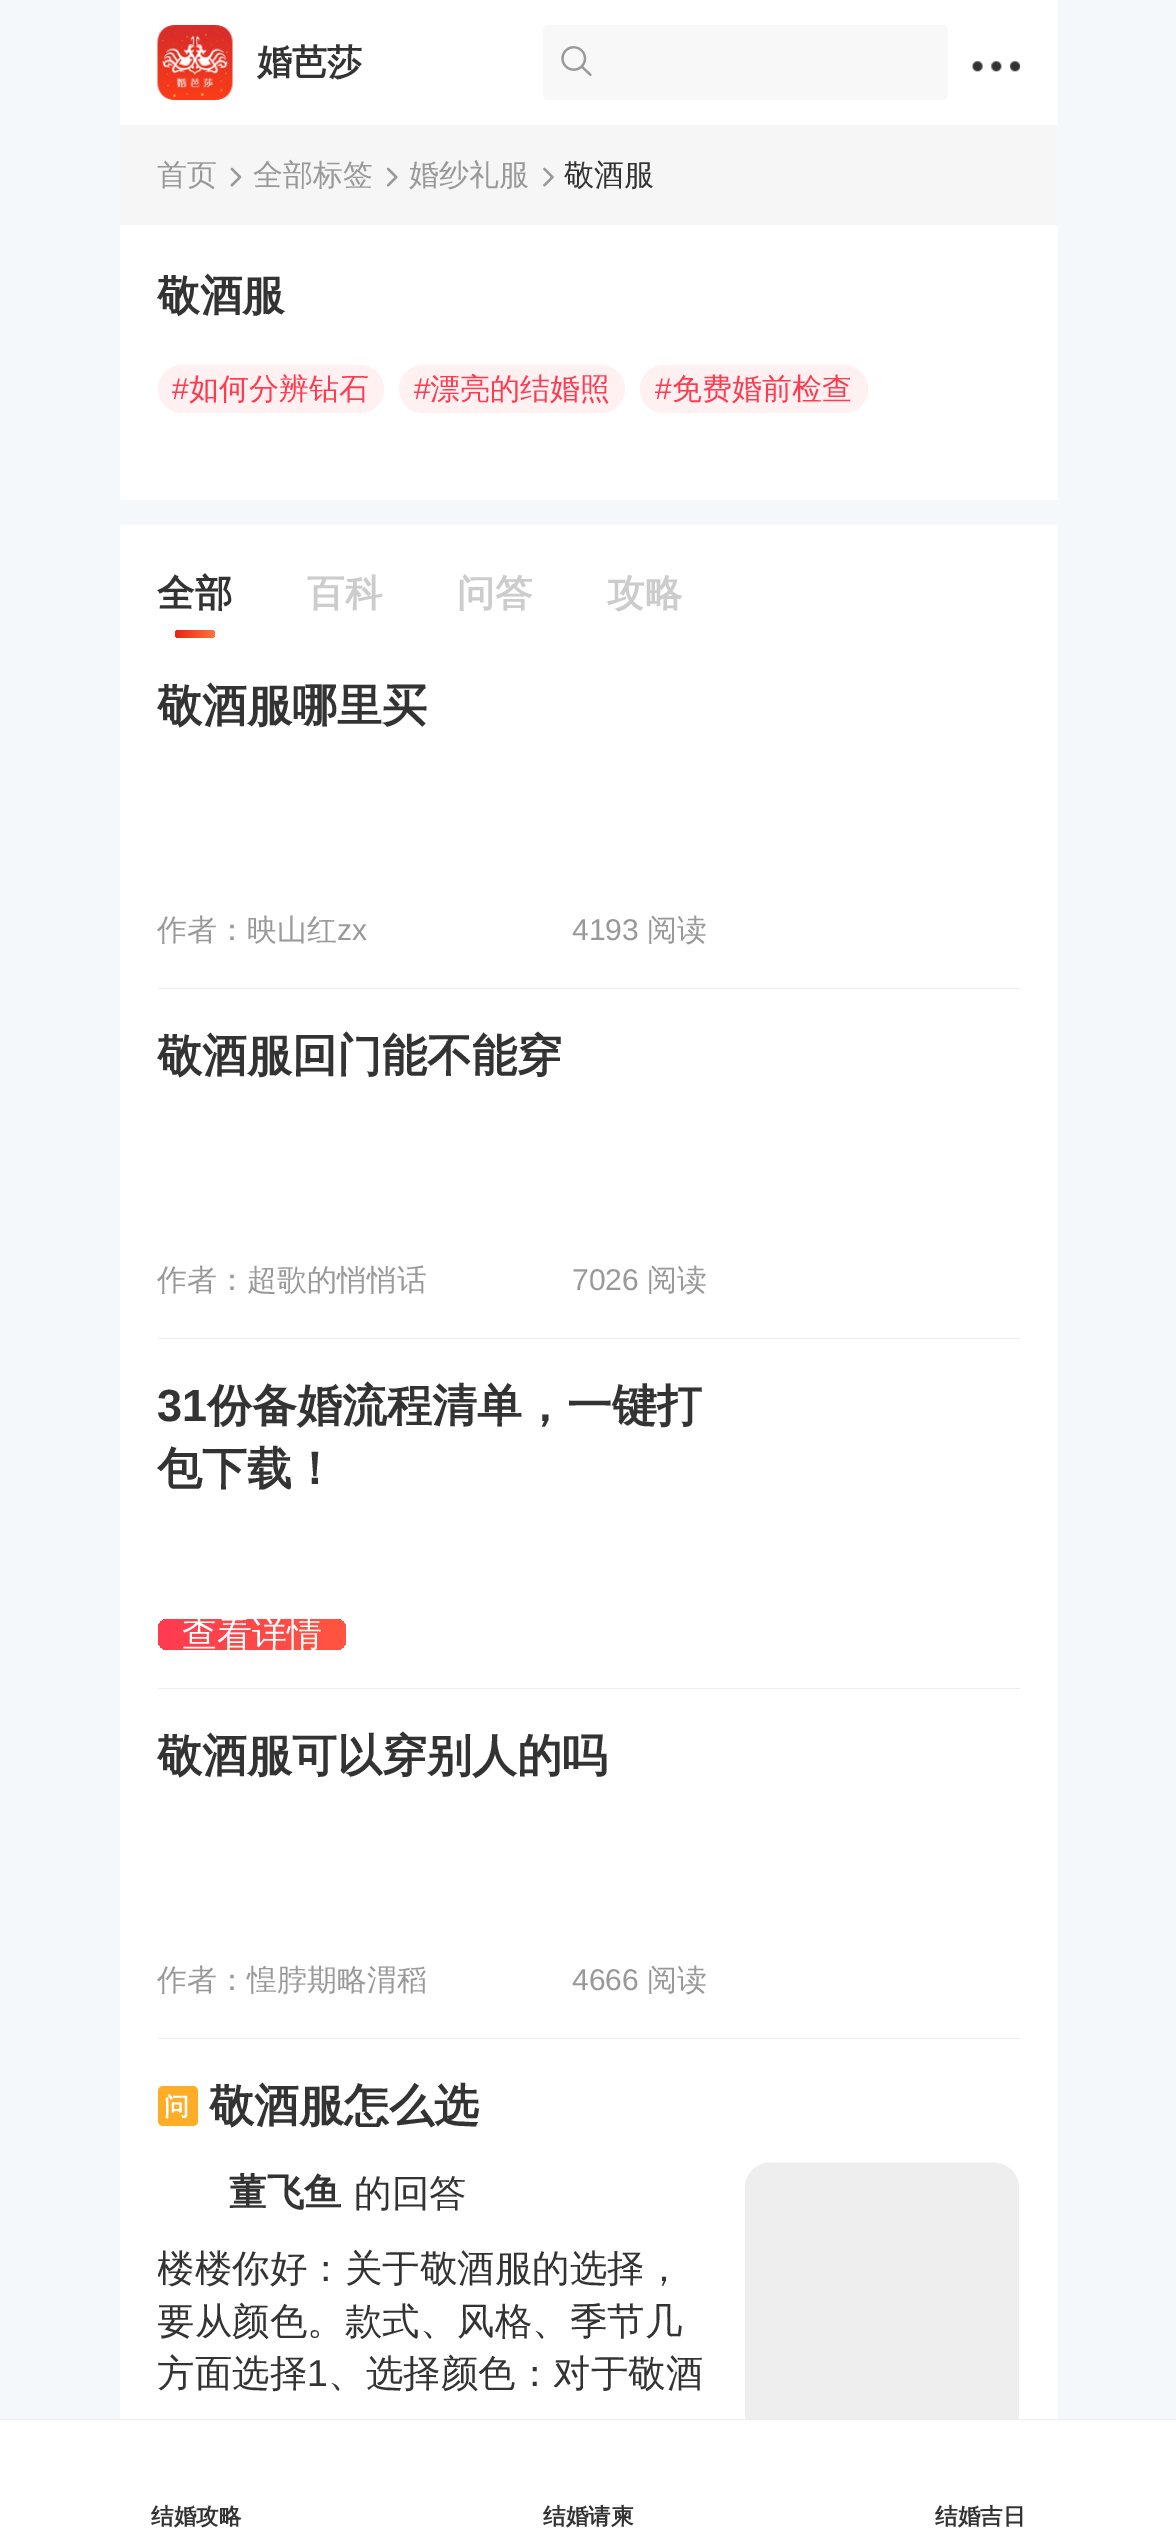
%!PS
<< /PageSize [1176 2541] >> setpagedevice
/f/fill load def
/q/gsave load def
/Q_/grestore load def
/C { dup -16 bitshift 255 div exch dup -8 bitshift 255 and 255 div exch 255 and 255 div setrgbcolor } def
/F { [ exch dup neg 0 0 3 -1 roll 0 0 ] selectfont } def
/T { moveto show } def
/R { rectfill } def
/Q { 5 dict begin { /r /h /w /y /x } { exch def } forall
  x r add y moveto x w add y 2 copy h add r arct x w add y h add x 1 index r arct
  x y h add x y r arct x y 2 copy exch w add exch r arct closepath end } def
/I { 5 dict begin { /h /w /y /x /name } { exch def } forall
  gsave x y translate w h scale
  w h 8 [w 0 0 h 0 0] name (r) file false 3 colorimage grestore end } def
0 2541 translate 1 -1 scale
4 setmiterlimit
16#F5F8FA C
0 0 1176 2541 R
16#FFFFFF C
120 0 938 125 R
(1.rgb) 157 25 76 75 I
/WenQuanYiZenHei-Bold 35 F
16#333333 C
(婚芭莎) 257 74 T
16#F8F8F8 C
543 25 405 75 5 Q f
(2.rgb) 561 46 31 30 I
(3.rgb) 972 61 48 11 I
16#F6F6F6 C
120 125 938 100 R
/WenQuanYiZenHei-Medium 30 F
16#999999 C
(首页) 157 185 T
(4.rgb) 230 167 12 20 I
(全部标签) 253 185 T
(5.rgb) 386 167 12 20 I
(婚纱礼服) 409 185 T
(6.rgb) 543 167 11 20 I
16#333333 C
(敬酒服) 564 185 T
16#FFFFFF C
120 225 938 275 R
/WenQuanYiZenHei-Bold 42.5 F
16#333333 C
(敬酒服) 157 310 T
16#FFF1F1 C
158 365 226 48 24 Q f
/LiberationSans-Regular 30 F
16#FF3B50 C
(#) 172 399 T
/WenQuanYiZenHei-Medium 30 F
(如何分辨钻石) 189 399 T
16#FFF1F1 C
399 365 226 48 24 Q f
/LiberationSans-Regular 30 F
16#FF3B50 C
(#) 414 399 T
/WenQuanYiZenHei-Medium 30 F
(漂亮的结婚照) 430 399 T
16#FFF1F1 C
640 365 228 48 24 Q f
/LiberationSans-Regular 30 F
16#FF3B50 C
(#) 655 399 T
/WenQuanYiZenHei-Medium 30 F
(免费婚前检查) 672 399 T
16#FFFFFF C
120 525 938 1894 R
/WenQuanYiZenHei-Bold 37.5 F
16#333333 C
(全部) 157 606 T
q 175 630 40 8 4 Q clip newpath
<< /ShadingType 2 /ColorSpace /DeviceRGB /Coords [215 634 175 634] /Extend [true true] /Function << /FunctionType 2 /Domain [0 1] /C0 [.992 .463 .239] /C1 [.906 .141 .078] /N 1 >> >> shfill Q_
16#CCCCCC C
(百科) 307 606 T
(问答) 457 606 T
(攻略) 607 606 T
/WenQuanYiZenHei-Bold 45 F
16#333333 C
(敬酒服哪里买) 157 721 T
/WenQuanYiZenHei-Medium 30 F
16#999999 C
(作者：映山红) 157 940 T
/LiberationSans-Regular 30 F
(zx) 337 940 T
(4193) 572 940 T
/WenQuanYiZenHei-Medium 30 F
(阅读) 647 940 T
16#EEEEEE C
158 988 862 1 .5 Q f
/WenQuanYiZenHei-Bold 45 F
16#333333 C
(敬酒服回门能不能穿) 157 1071 T
/WenQuanYiZenHei-Medium 30 F
16#999999 C
(作者：超歌的悄悄话) 157 1290 T
/LiberationSans-Regular 30 F
(7026) 572 1290 T
/WenQuanYiZenHei-Medium 30 F
(阅读) 647 1290 T
16#EEEEEE C
158 1338 862 1 .5 Q f
/LiberationSans-Bold 45 F
16#333333 C
(31) 157 1421 T
/WenQuanYiZenHei-Bold 45 F
(份备婚流程清单，一键打) 207 1421 T
(包下载！) 157 1484 T
q 158 1619 188 31 10 Q clip newpath
<< /ShadingType 2 /ColorSpace /DeviceRGB /Coords [158 1634 346 1634] /Extend [true true] /Function << /FunctionType 2 /Domain [0 1] /C0 [1 .231 .314] /C1 [1 .333 .259] /N 1 >> >> shfill Q_
/WenQuanYiZenHei-Medium 35 F
16#FFFFFF C
(查看详情) 182 1646 T
16#EEEEEE C
158 1688 862 1 .5 Q f
/WenQuanYiZenHei-Bold 45 F
16#333333 C
(敬酒服可以穿别人的吗) 157 1771 T
/WenQuanYiZenHei-Medium 30 F
16#999999 C
(作者：惶脖期略渭稻) 157 1990 T
/LiberationSans-Regular 30 F
(4666) 572 1990 T
/WenQuanYiZenHei-Medium 30 F
(阅读) 647 1990 T
16#EEEEEE C
158 2038 862 1 .5 Q f
16#FFAD26 C
158 2086 40 40 5 Q f
/WenQuanYiZenHei-Bold 25 F
16#FFFFFF C
(问) 164 2115 T
/WenQuanYiZenHei-Bold 45 F
16#333333 C
(敬酒服怎么选) 209 2121 T
/WenQuanYiZenHei-Bold 37.5 F
(董飞鱼) 229 2205 T
/WenQuanYiZenHei-Medium 37.5 F
(的回答) 354 2206 T
q
158 2243 550 157 rectclip
(楼楼你好：关于敬酒服的选择，) 157 2281 T
(要从颜色。款式、风格、季节几) 157 2334 T
Q_
(方面选择) 157 2386 T
/LiberationSans-Regular 37.5 F
(1) 307 2386 T
/WenQuanYiZenHei-Medium 37.5 F
(、选择颜色：对于敬酒) 328 2386 T
16#EEEEEE C
745 2163 274 275 25 Q f
(7.rgb) 745 2162 271 22 I
16#FFFFFF C
0 2419 1176 122 R
16#EEEEEE C
0 2419 1176 1 .5 Q f
/WenQuanYiZenHei-Bold 22.5 F
16#333333 C
(结婚攻略) 151 2524 T
(结婚请柬) 543 2524 T
(结婚吉日) 935 2524 T
showpage
